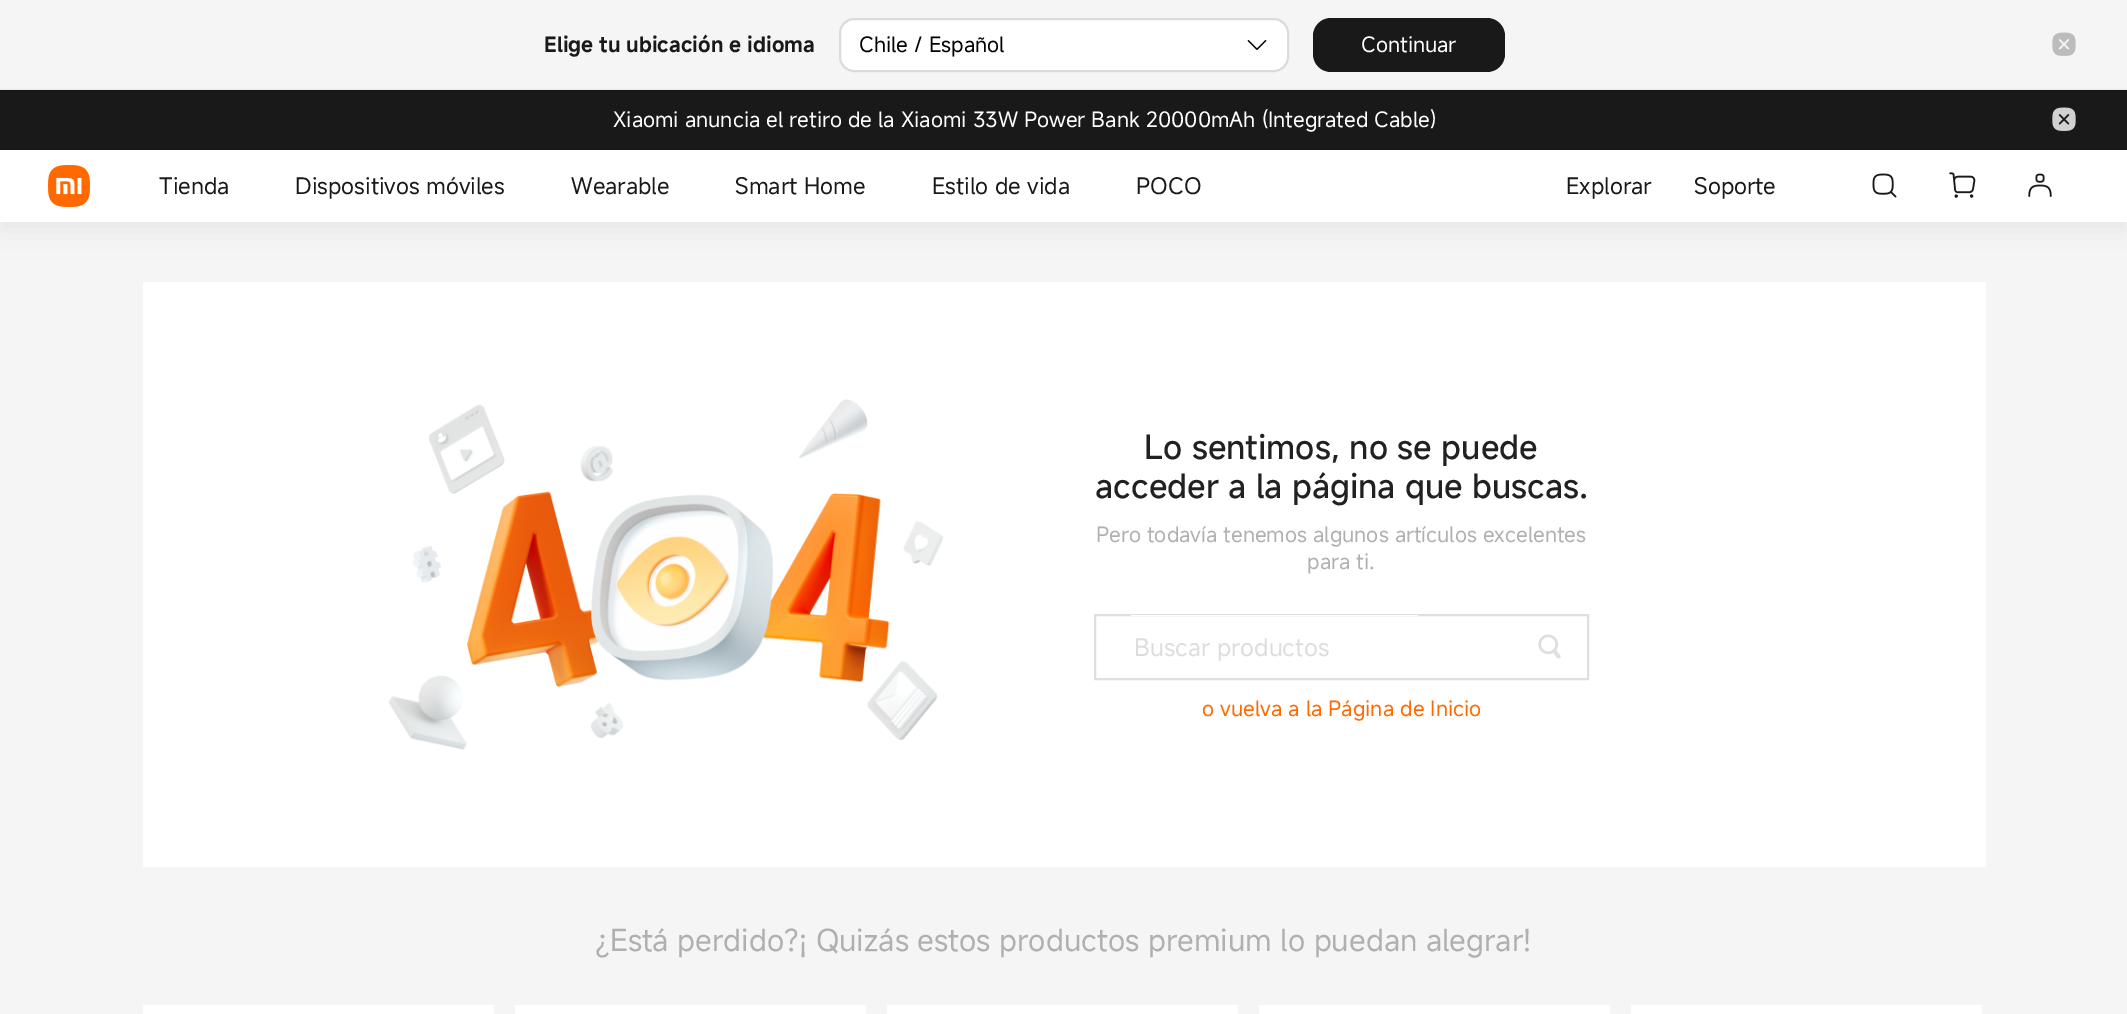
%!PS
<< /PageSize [2127 1014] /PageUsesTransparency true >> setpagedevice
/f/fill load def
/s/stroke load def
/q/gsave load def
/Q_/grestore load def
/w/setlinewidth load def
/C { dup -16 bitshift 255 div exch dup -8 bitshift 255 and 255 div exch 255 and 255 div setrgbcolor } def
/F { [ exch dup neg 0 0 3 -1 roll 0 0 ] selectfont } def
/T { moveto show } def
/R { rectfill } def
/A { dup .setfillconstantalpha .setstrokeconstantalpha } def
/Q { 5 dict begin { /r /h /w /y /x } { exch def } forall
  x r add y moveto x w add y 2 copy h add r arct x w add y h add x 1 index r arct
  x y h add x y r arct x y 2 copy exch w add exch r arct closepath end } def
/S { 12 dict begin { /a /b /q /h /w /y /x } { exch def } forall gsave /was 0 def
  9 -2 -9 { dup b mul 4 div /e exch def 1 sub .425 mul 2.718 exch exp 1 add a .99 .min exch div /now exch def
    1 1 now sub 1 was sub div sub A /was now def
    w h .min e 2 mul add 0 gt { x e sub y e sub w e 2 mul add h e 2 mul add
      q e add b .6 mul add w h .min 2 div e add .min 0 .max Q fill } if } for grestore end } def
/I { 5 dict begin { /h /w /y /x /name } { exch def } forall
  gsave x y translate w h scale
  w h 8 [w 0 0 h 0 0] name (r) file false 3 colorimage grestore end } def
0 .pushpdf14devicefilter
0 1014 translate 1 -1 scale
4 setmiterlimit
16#F5F5F5 C
0 0 2127 1014 R
16#E8E8E8 C
0 89 2127 1 R
/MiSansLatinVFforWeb-Bold 21 F
16#191919 C
(Elige tu ubicación e idioma) 544 52 T
16#FFFFFF C
840 19 448 52 14 Q q f Q_
16#DBDBDB C
2 w
s
/MiSansLatinVFforWeb-Regular 21 F
16#000000 C
(Chile / Español) 859 52 T
(1.rgb) 1247 40 20 10 I
16#191919 C
1313 18 192 54 18 Q f
16#FFFFFF C
(Continuar) 1361 52 T
(2.rgb) 2052 32 24 24 I
16#191919 C
0 90 2127 60 R
16#FFFFFF C
(Xiaomi anuncia el retiro de la Xiaomi 33W Power Bank 20000mAh \(Integrated Cable\)) 613 127 T
(3.rgb) 2052 107 24 24 I
16#191919 C
0 159 2127 72 0 12 .06 S
16#FFFFFF C
0 150 2127 72 R
(4.rgb) 48 165 42 42 I
/MiSansLatinVFforWeb-Regular 22.5 F
16#191919 C
(Tienda) 159 194 T
(Dispositivos móviles) 295 194 T
(Wearable) 571 194 T
(Smart Home) 735 194 T
(Estilo de vida) 932 194 T
(POCO) 1136 194 T
(Explorar) 1566 194 T
(Soporte) 1694 194 T
(5.rgb) 1872 173 25 25 I
(6.rgb) 1949 172 27 26 I
(7.rgb) 2028 173 24 24 I
16#FFFFFF C
143 282 1843 585 R
(8.rgb) 388 399 556 351 I
/MiSansLatinVFforWeb-Medium 33 F
16#212121 C
(Lo sentimos, no se puede) 1144 459 T
(acceder a la página que buscas.) 1095 498 T
/MiSansLatinVFforWeb-Regular 21 F
16#B0B0B0 C
(Pero todavía tenemos algunos artículos excelentes) 1096 542 T
(para ti.) 1307 569 T
16#DFDFDF C
1095 615 493 64 rectstroke
16#FFFFFF C
1131 615 287 1 R
/MiSansLatinVFforWeb-Regular 24 F
16#DDDDDD C
(Buscar productos) 1134 656 T
(9.rgb) 1538 634 23 25 I
/MiSansLatinVFforWeb-Regular 21 F
16#FF6900 C
(o vuelva a la Página de Inicio) 1202 716 T
/MiSansLatinVFforWeb-Regular 30 F
16#B0B0B0 C
(¿Está perdido?¡ Quizás estos productos premium lo puedan alegrar!) 595 951 T
16#FFFFFF C
143 1005 351 9 R
515 1005 351 9 R
887 1005 351 9 R
1259 1005 351 9 R
1631 1005 351 9 R
.poppdf14devicefilter showpage
